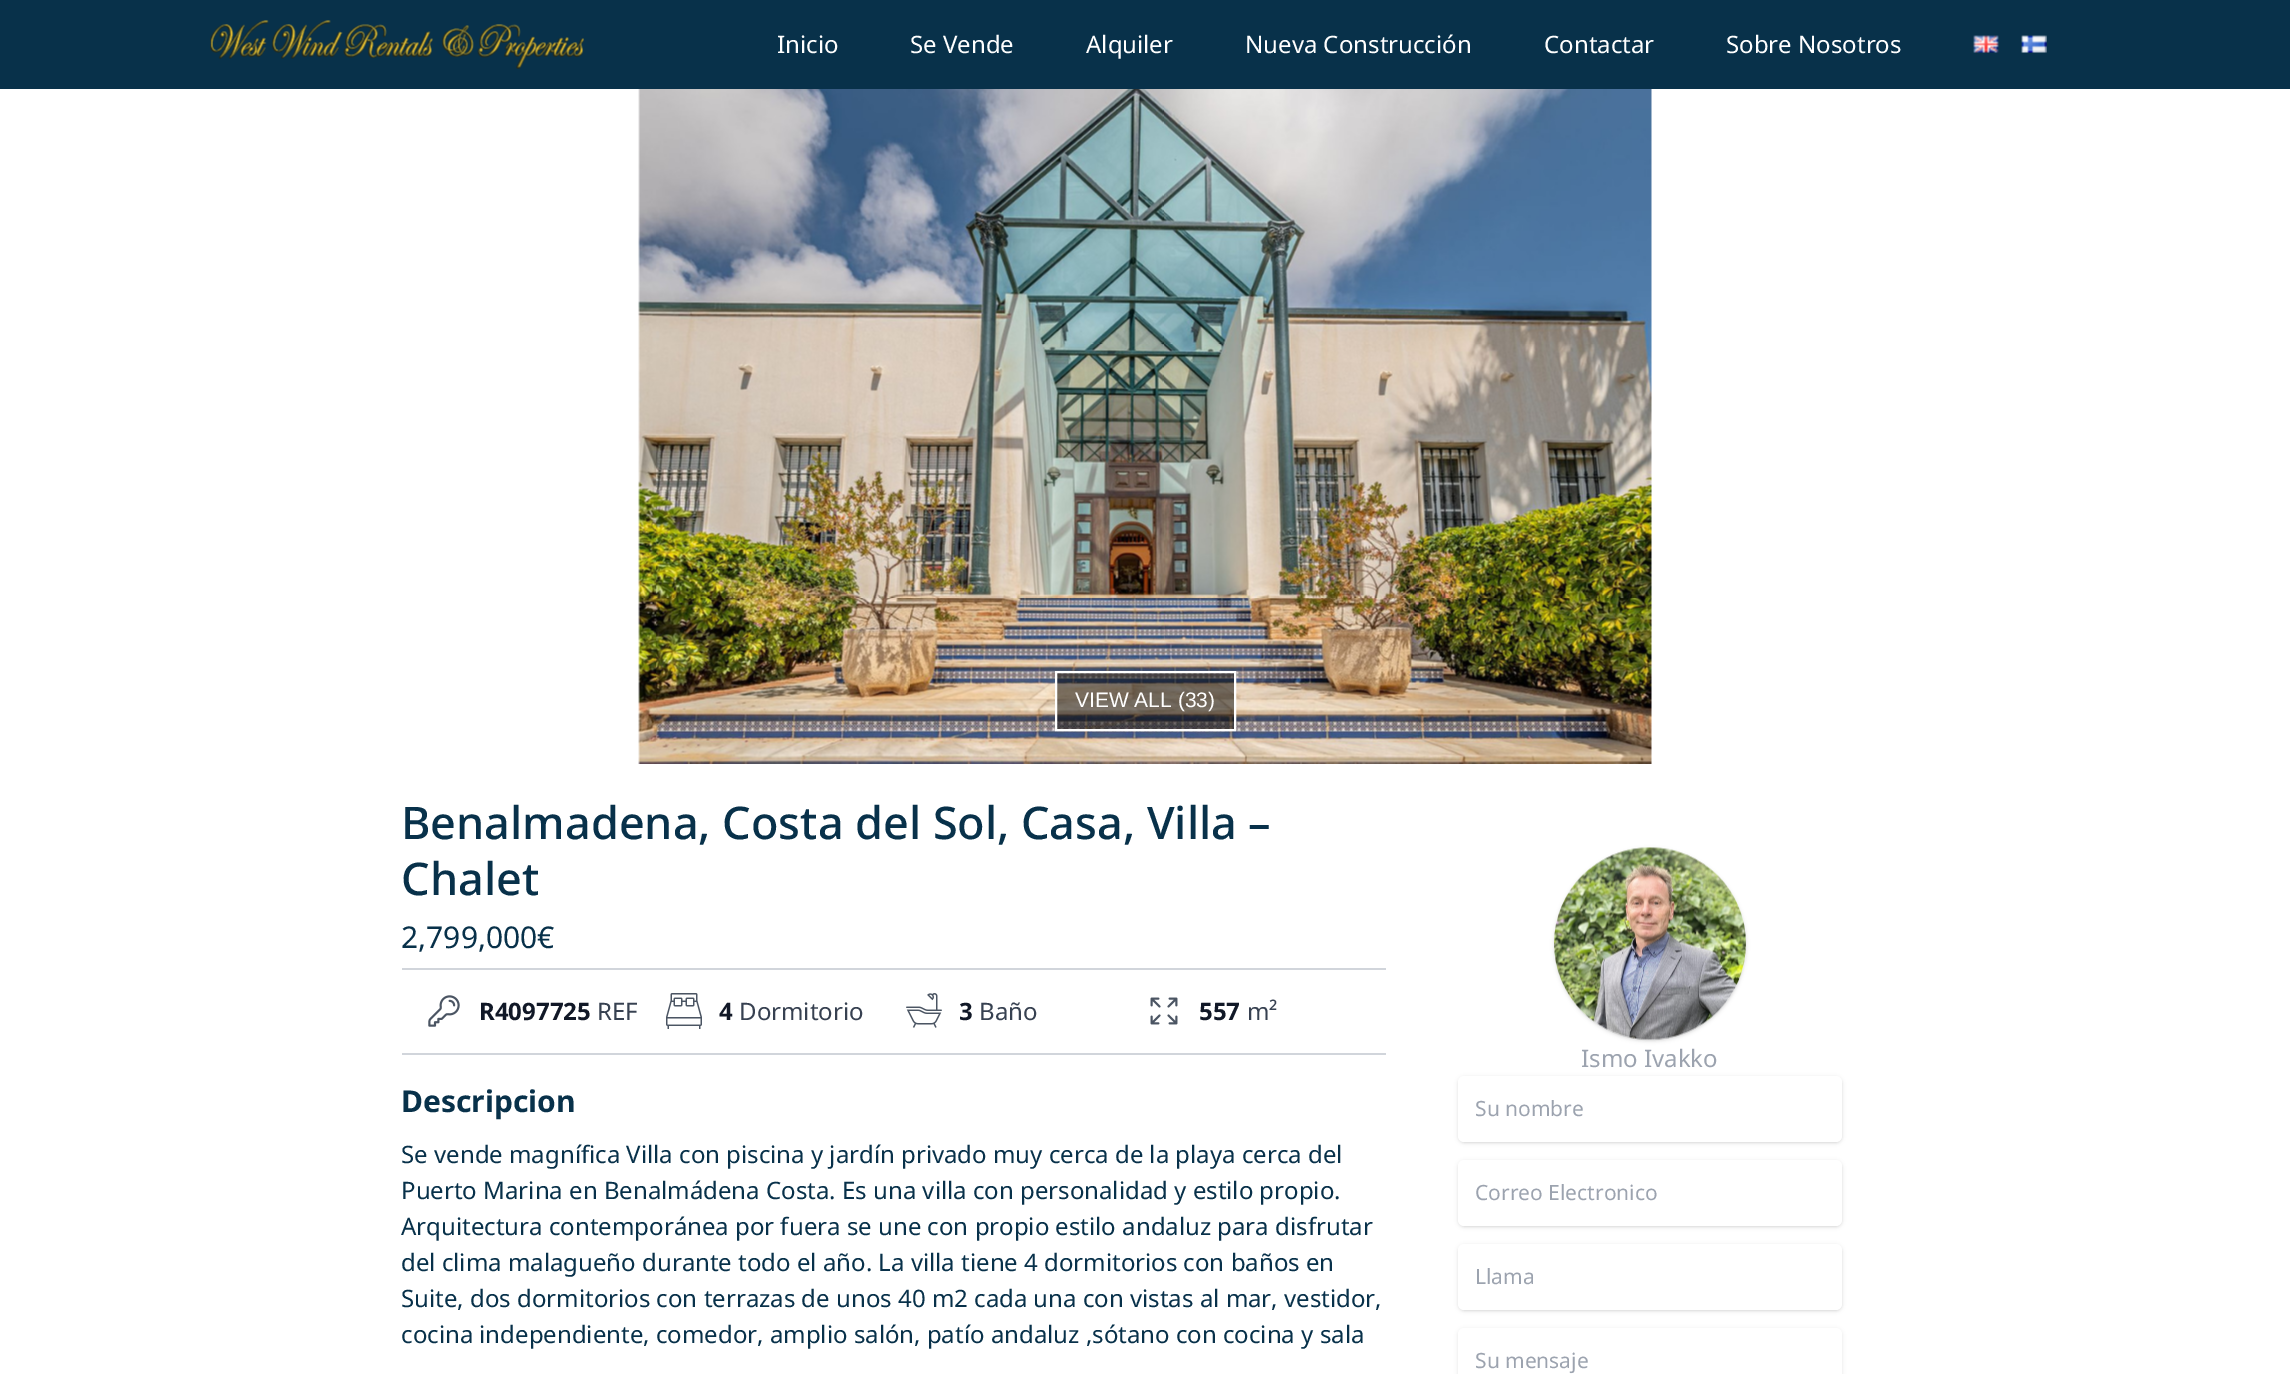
%!PS
<< /PageSize [2290 1374] /PageUsesTransparency true >> setpagedevice
/m/moveto load def
/l/rlineto load def
/z/closepath load def
/f/fill load def
/s/stroke load def
/w/setlinewidth load def
/C { dup -16 bitshift 255 div exch dup -8 bitshift 255 and 255 div exch 255 and 255 div setrgbcolor } def
/F { [ exch dup neg 0 0 3 -1 roll 0 0 ] selectfont } def
/T { moveto show } def
/R { rectfill } def
/A { dup .setfillconstantalpha .setstrokeconstantalpha } def
/Q { 5 dict begin { /r /h /w /y /x } { exch def } forall
  x r add y moveto x w add y 2 copy h add r arct x w add y h add x 1 index r arct
  x y h add x y r arct x y 2 copy exch w add exch r arct closepath end } def
/S { 12 dict begin { /a /b /q /h /w /y /x } { exch def } forall gsave /was 0 def
  9 -2 -9 { dup b mul 4 div /e exch def 1 sub .425 mul 2.718 exch exp 1 add a .99 .min exch div /now exch def
    1 1 now sub 1 was sub div sub A /was now def
    w h .min e 2 mul add 0 gt { x e sub y e sub w e 2 mul add h e 2 mul add
      q e add b .6 mul add w h .min 2 div e add .min 0 .max Q fill } if } for grestore end } def
/I { 5 dict begin { /h /w /y /x /name } { exch def } forall
  gsave x y translate w h scale
  w h 8 [w 0 0 h 0 0] name (r) file false 3 colorimage grestore end } def
0 .pushpdf14devicefilter
0 1374 translate 1 -1 scale
4 setmiterlimit
16#FFFFFF C
0 0 2290 1374 R
16#08314A C
0 0 2290 89 R
(1.rgb) 210 20 374 49 I
/NotoSans-Regular 24 F
16#FFFFFF C
(Inicio) 777 53 T
(Se Vende) 910 53 T
(Alquiler) 1086 53 T
(Nueva Construcción) 1245 53 T
(Contactar) 1544 53 T
(Sobre Nosotros) 1726 53 T
(2.rgb) 1973 35 26 18 I
(3.rgb) 2021 35 26 18 I
(4.rgb) 638 89 1014 675 I
0.5 A
16#000000 C
1056 672 m 179 0 l 0 58 l -179 0 l z f
1 A
16#FFFFFF C
2 w
1056 672 m 179 0 l 0 58 l -179 0 l z s
/LiberationSans-Regular 21 F
(VIEW ALL \(33\)) 1075 707 T
/NotoSans-Medium 45 F
16#08314A C
(Benalmadena, Costa del Sol, Casa, Villa –) 401 839 T
(Chalet) 401 895 T
/NotoSans-Regular 30 F
(2,799,000€) 401 948 T
16#D1D5DB C
402 968 984 2 R
402 1053 984 2 R
(5.rgb) 428 995 32 32 I
/NotoSans-Bold 24 F
16#111827 C
(R4097725) 479 1020 T
/NotoSans-Regular 24 F
16#374151 C
(REF) 597 1020 T
(6.rgb) 666 993 36 36 I
/NotoSans-Bold 24 F
16#111827 C
(4) 719 1020 T
/NotoSans-Regular 24 F
16#374151 C
(Dormitorio) 739 1020 T
(7.rgb) 906 993 36 35 I
/NotoSans-Bold 24 F
16#111827 C
(3) 959 1020 T
/NotoSans-Regular 24 F
16#374151 C
(Baño) 979 1020 T
(8.rgb) 1150 997 28 28 I
/NotoSans-Bold 24 F
16#111827 C
(557) 1199 1020 T
/NotoSans-Regular 24 F
16#374151 C
(m²) 1247 1020 T
/NotoSans-Bold 30 F
16#08314A C
(Descripcion) 401 1112 T
/NotoSans-Regular 24 F
(Se vende magnífica Villa con piscina y jardín privado muy cerca de la playa cerca del) 401 1163 T
(Puerto Marina en Benalmádena Costa. Es una villa con personalidad y estilo propio.) 401 1199 T
(Arquitectura contemporánea por fuera se une con propio estilo andaluz para disfrutar) 401 1235 T
(del clima malagueño durante todo el año. La villa tiene 4 dormitorios con baños en) 401 1271 T
(Suite, dos dormitorios con terrazas de unos 40 m2 cada una con vistas al mar, vestidor,) 401 1307 T
(cocina independiente, comedor, amplio salón, patío andaluz ,sótano con cocina y sala) 401 1343 T
16#000000 C
1556 851 189 189 94.5 1.5 .1 S
1554 849 192 192 96 2 .1 S
(9.rgb) 1554 847 192 193 I
16#9CA3AF C
(Ismo Ivakko) 1581 1067 T
16#000000 C
1460 1079 381 63 5 1.5 .1 S
1458 1077 384 66 6 2 .1 S
16#FFFFFF C
1458 1076 384 66 6 Q f
/NotoSans-Regular 21 F
16#9CA3AF C
(Su nombre) 1475 1116 T
16#000000 C
1460 1163 381 63 5 1.5 .1 S
1458 1161 384 66 6 2 .1 S
16#FFFFFF C
1458 1160 384 66 6 Q f
16#9CA3AF C
(Correo Electronico) 1475 1200 T
16#000000 C
1460 1247 381 63 5 1.5 .1 S
1458 1245 384 66 6 2 .1 S
16#FFFFFF C
1458 1244 384 66 6 Q f
16#9CA3AF C
(Llama) 1475 1284 T
16#000000 C
1458 1329 384 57 6 2 .1 S
16#FFFFFF C
1458 1328 384 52 6 Q f
16#9CA3AF C
(Su mensaje) 1475 1368 T
.poppdf14devicefilter showpage
